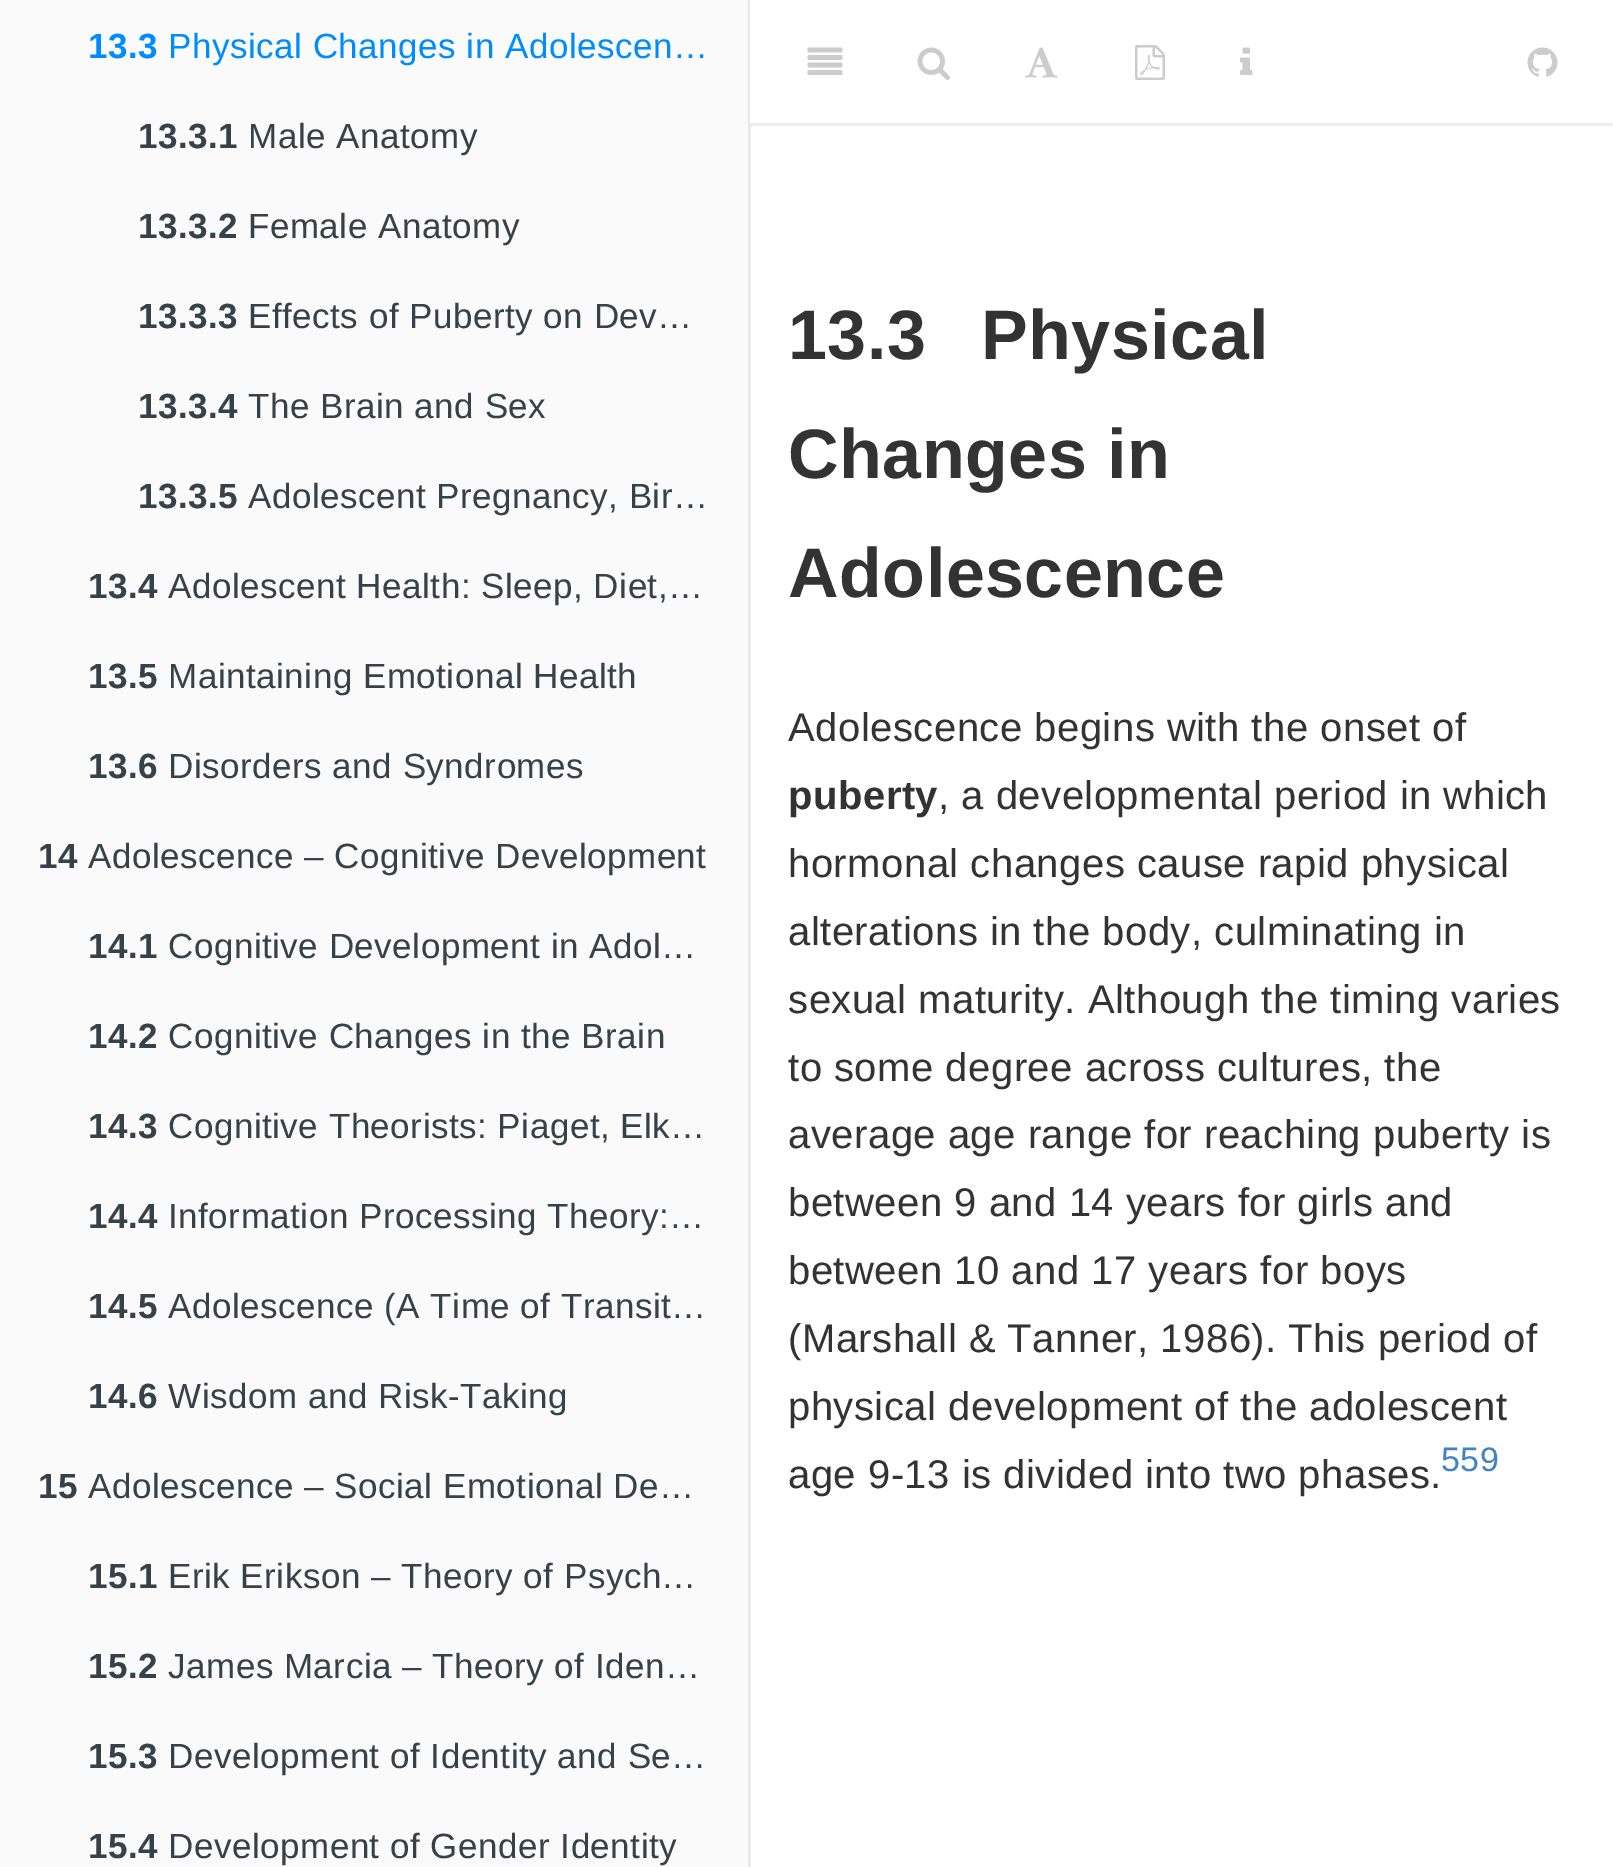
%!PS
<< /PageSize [1613 1867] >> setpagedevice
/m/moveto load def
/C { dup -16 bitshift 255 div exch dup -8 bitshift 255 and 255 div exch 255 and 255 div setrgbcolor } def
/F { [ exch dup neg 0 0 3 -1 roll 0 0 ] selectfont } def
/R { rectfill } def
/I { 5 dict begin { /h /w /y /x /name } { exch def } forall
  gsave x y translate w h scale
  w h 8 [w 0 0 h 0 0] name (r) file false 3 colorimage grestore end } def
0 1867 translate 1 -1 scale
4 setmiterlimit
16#FFFFFF C
0 0 1613 1867 R
16#EDEDED C
750 125 863 1 R
750 126 1 1741 R
16#DCDCDC C
750 123 1 3 R
16#FAFAFA C
0 0 748 1867 R
16#E8E8E8 C
748 0 2 1867 R
/LiberationSans-Bold 35 F
16#008CFF C
88 58 m .5 0 (13.3) ashow
/LiberationSans-Regular 35 F
168 58 m .5 0 (Physical Changes in Adolescen…) ashow
/LiberationSans-Bold 35 F
16#364149 C
138 148 m .5 0 (13.3.1) ashow
/LiberationSans-Regular 35 F
248 148 m .5 0 (Male Anatomy) ashow
/LiberationSans-Bold 35 F
138 238 m .5 0 (13.3.2) ashow
/LiberationSans-Regular 35 F
248 238 m .5 0 (Female Anatomy) ashow
/LiberationSans-Bold 35 F
138 328 m .5 0 (13.3.3) ashow
/LiberationSans-Regular 35 F
248 328 m .5 0 (Effects of Puberty on Dev…) ashow
/LiberationSans-Bold 35 F
138 418 m .5 0 (13.3.4) ashow
/LiberationSans-Regular 35 F
248 418 m .5 0 (The Brain and Sex) ashow
/LiberationSans-Bold 35 F
138 508 m .5 0 (13.3.5) ashow
/LiberationSans-Regular 35 F
248 508 m .5 0 (Adolescent Pregnancy, Bir…) ashow
/LiberationSans-Bold 35 F
88 598 m .5 0 (13.4) ashow
/LiberationSans-Regular 35 F
168 598 m .5 0 (Adolescent Health: Sleep, Diet,…) ashow
/LiberationSans-Bold 35 F
88 688 m .5 0 (13.5) ashow
/LiberationSans-Regular 35 F
168 688 m .5 0 (Maintaining Emotional Health) ashow
/LiberationSans-Bold 35 F
88 778 m .5 0 (13.6) ashow
/LiberationSans-Regular 35 F
168 778 m .5 0 (Disorders and Syndromes) ashow
/LiberationSans-Bold 35 F
38 868 m .5 0 (14) ashow
/LiberationSans-Regular 35 F
88 868 m .5 0 (Adolescence – Cognitive Development) ashow
/LiberationSans-Bold 35 F
88 958 m .5 0 (14.1) ashow
/LiberationSans-Regular 35 F
168 958 m .5 0 (Cognitive Development in Adol…) ashow
/LiberationSans-Bold 35 F
88 1048 m .5 0 (14.2) ashow
/LiberationSans-Regular 35 F
168 1048 m .5 0 (Cognitive Changes in the Brain) ashow
/LiberationSans-Bold 35 F
88 1138 m .5 0 (14.3) ashow
/LiberationSans-Regular 35 F
168 1138 m .5 0 (Cognitive Theorists: Piaget, Elk…) ashow
/LiberationSans-Bold 35 F
88 1228 m .5 0 (14.4) ashow
/LiberationSans-Regular 35 F
168 1228 m .5 0 (Information Processing Theory:…) ashow
/LiberationSans-Bold 35 F
88 1318 m .5 0 (14.5) ashow
/LiberationSans-Regular 35 F
168 1318 m .5 0 (Adolescence \(A Time of Transit…) ashow
/LiberationSans-Bold 35 F
88 1408 m .5 0 (14.6) ashow
/LiberationSans-Regular 35 F
168 1408 m .5 0 (Wisdom and Risk-Taking) ashow
/LiberationSans-Bold 35 F
38 1498 m .5 0 (15) ashow
/LiberationSans-Regular 35 F
88 1498 m .5 0 (Adolescence – Social Emotional De…) ashow
/LiberationSans-Bold 35 F
88 1588 m .5 0 (15.1) ashow
/LiberationSans-Regular 35 F
168 1588 m .5 0 (Erik Erikson – Theory of Psych…) ashow
/LiberationSans-Bold 35 F
88 1678 m .5 0 (15.2) ashow
/LiberationSans-Regular 35 F
168 1678 m .5 0 (James Marcia – Theory of Iden…) ashow
/LiberationSans-Bold 35 F
88 1768 m .5 0 (15.3) ashow
/LiberationSans-Regular 35 F
168 1768 m .5 0 (Development of Identity and Se…) ashow
/LiberationSans-Bold 35 F
88 1858 m .5 0 (15.4) ashow
/LiberationSans-Regular 35 F
168 1858 m .5 0 (Development of Gender Identity) ashow
16#EDEDED C
750 123 863 2 R
(1.rgb) 807 47 36 28 I
(2.rgb) 917 47 33 33 I
(3.rgb) 1025 47 33 31 I
(4.rgb) 1135 45 30 35 I
(5.rgb) 1240 47 13 28 I
(6.rgb) 1527 47 31 30 I
/LiberationSans-Bold 70 F
16#333333 C
788 359 m .5 0 (13.3) ashow
981 359 m .5 0 (Physical) ashow
788 478 m .5 0 (Changes in) ashow
788 597 m .5 0 (Adolescence) ashow
/LiberationSans-Regular 40 F
788 741 m .5 0 (Adolescence begins with the onset of) ashow
/LiberationSans-Bold 40 F
788 809 m .5 0 (puberty) ashow
/LiberationSans-Regular 40 F
938 809 m .5 0 (, a developmental period in which) ashow
788 877 m .5 0 (hormonal changes cause rapid physical) ashow
788 945 m .5 0 (alterations in the body, culminating in) ashow
788 1013 m .5 0 (sexual maturity. Although the timing varies) ashow
788 1081 m .5 0 (to some degree across cultures, the) ashow
788 1148 m .5 0 (average age range for reaching puberty is) ashow
788 1216 m .5 0 (between 9 and 14 years for girls and) ashow
788 1284 m .5 0 (between 10 and 17 years for boys) ashow
788 1352 m .5 0 (\(Marshall & Tanner, 1986\). This period of) ashow
788 1420 m .5 0 (physical development of the adolescent) ashow
788 1488 m .5 0 (age 9-13 is divided into two phases.) ashow
/LiberationSans-Regular 34 F
16#4183C4 C
1441 1471 m .5 0 (559) ashow
showpage
